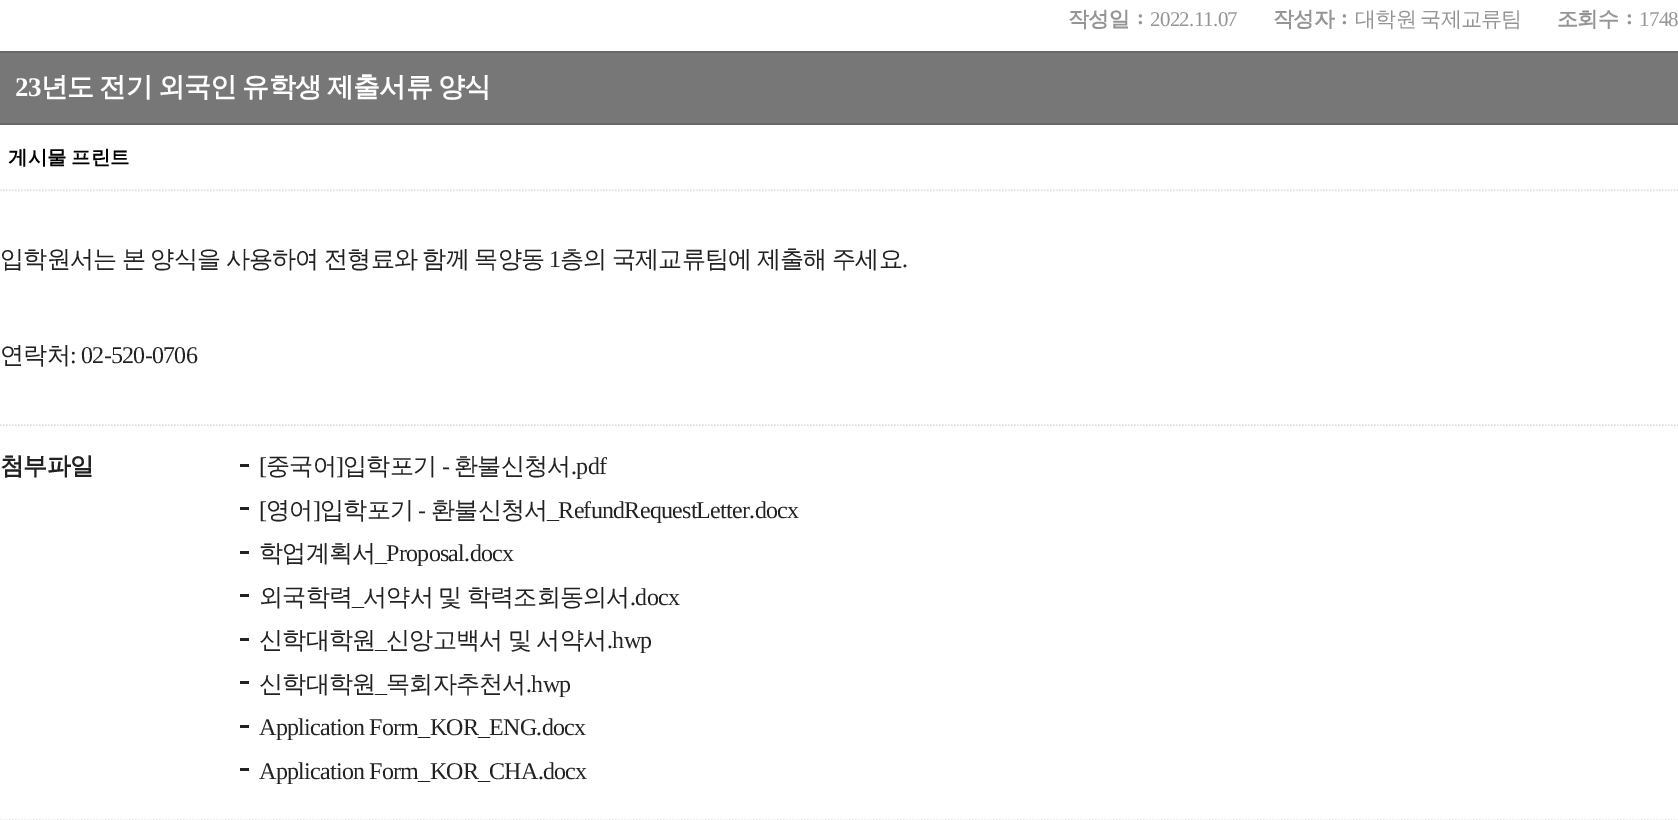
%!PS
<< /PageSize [1678 820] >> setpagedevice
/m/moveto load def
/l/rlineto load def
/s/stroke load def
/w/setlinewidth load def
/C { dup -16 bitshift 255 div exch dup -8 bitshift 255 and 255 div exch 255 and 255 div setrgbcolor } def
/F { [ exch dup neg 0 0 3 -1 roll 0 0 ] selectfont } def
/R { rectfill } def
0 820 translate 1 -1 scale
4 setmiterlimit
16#FFFFFF C
0 0 1678 820 R
/WenQuanYiZenHei-Bold 21 F
16#959595 C
1068 26 m -.75 0 (작성일) ashow
/LiberationSerif-Bold 21 F
1137 24 m -.75 0 (:) ashow
/LiberationSerif-Regular 21 F
1150 26 m -.75 0 (2022.11.07) ashow
/WenQuanYiZenHei-Bold 21 F
1273 26 m -.75 0 (작성자) ashow
/LiberationSerif-Bold 21 F
1341 24 m -.75 0 (:) ashow
/WenQuanYiZenHei-Medium 21 F
1355 26 m -1 0 32 -.75 0 (대학원 국제교류팀) awidthshow
/WenQuanYiZenHei-Bold 21 F
1557 26 m -.75 0 (조회수) ashow
/LiberationSerif-Bold 21 F
1626 24 m -.75 0 (:) ashow
/LiberationSerif-Regular 21 F
1639 26 m -.75 0 (1748) ashow
16#777777 C
0 53 1678 70 R
16#696969 C
0 51 1678 2 R
0 123 1678 2 R
/LiberationSerif-Bold 27 F
16#FFFFFF C
15 96 m -.75 0 (23) ashow
/WenQuanYiZenHei-Bold 27 F
41 96 m -1.5 0 32 -.75 0 (년도 전기 외국인 유학생 제출서류 양식) awidthshow
16#DDDDDD C
1.5 w
[1.5 1.5] 0 setdash
0 190 m 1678.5 0 l s
/WenQuanYiZenHei-Bold 19.5 F
16#000000 C
8 164 m -1 0 32 (게시물 프린트) widthshow
16#DDDDDD C
0 425 m 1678.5 0 l s
/WenQuanYiZenHei-Medium 24 F
16#222222 C
0 267 m -1 0 32 -.75 0 (입학원서는 본 양식을 사용하여 전형료와 함께 목양동) awidthshow
/LiberationSerif-Regular 24 F
549 267 m -.75 0 (1) ashow
/WenQuanYiZenHei-Medium 24 F
560 267 m -1 0 32 -.75 0 (층의 국제교류팀에 제출해 주세요) awidthshow
/LiberationSerif-Regular 24 F
902 267 m -.75 0 (.) ashow
/WenQuanYiZenHei-Medium 24 F
0 363 m -.75 0 (연락처) ashow
/LiberationSerif-Regular 24 F
70 363 m -.75 0 (: 02-520-0706) ashow
16#DDDDDD C
0 820 m 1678.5 0 l s
/WenQuanYiZenHei-Bold 24 F
16#222222 C
0 474 m -.75 0 (첨부파일) ashow
240 464 9 3 R
/LiberationSerif-Regular 24 F
259 474 m -.75 0 ([) ashow
/WenQuanYiZenHei-Medium 24 F
266 474 m -.75 0 (중국어) ashow
/LiberationSerif-Regular 24 F
336 474 m -.75 0 (]) ashow
/WenQuanYiZenHei-Medium 24 F
343 474 m -.75 0 (입학포기) ashow
454 474 m -.75 0 (환불신청서) ashow
/LiberationSerif-Regular 24 F
571 474 m -.75 0 (.pdf) ashow
442 474 m -.75 0 (-) ashow
240 507 9 3 R
259 518 m -.75 0 ([) ashow
/WenQuanYiZenHei-Medium 24 F
266 518 m -.75 0 (영어) ashow
/LiberationSerif-Regular 24 F
313 518 m -.75 0 (]) ashow
/WenQuanYiZenHei-Medium 24 F
320 518 m -.75 0 (입학포기) ashow
431 518 m -.75 0 (환불신청서) ashow
/LiberationSerif-Regular 24 F
547 518 m -.75 0 (_RefundRequestLetter.docx) ashow
418 518 m -.75 0 (-) ashow
240 551 9 3 R
/WenQuanYiZenHei-Medium 24 F
259 561 m -.75 0 (학업계획서) ashow
/LiberationSerif-Regular 24 F
375 561 m -.75 0 (_Proposal.docx) ashow
240 594 9 3 R
/WenQuanYiZenHei-Medium 24 F
259 605 m -.75 0 (외국학력) ashow
/LiberationSerif-Regular 24 F
352 605 m -.75 0 (_) ashow
/WenQuanYiZenHei-Medium 24 F
363 605 m -1 0 32 -.75 0 (서약서 및 학력조회동의서) awidthshow
/LiberationSerif-Regular 24 F
630 605 m -.75 0 (.docx) ashow
240 638 9 3 R
/WenQuanYiZenHei-Medium 24 F
259 648 m -.75 0 (신학대학원) ashow
/LiberationSerif-Regular 24 F
375 648 m -.75 0 (_) ashow
/WenQuanYiZenHei-Medium 24 F
386 648 m -1 0 32 -.75 0 (신앙고백서 및 서약서) awidthshow
/LiberationSerif-Regular 24 F
607 648 m -.75 0 (.hwp) ashow
240 681 9 3 R
/WenQuanYiZenHei-Medium 24 F
259 692 m -.75 0 (신학대학원) ashow
386 692 m -.75 0 (목회자추천서) ashow
/LiberationSerif-Regular 24 F
526 692 m -.75 0 (.hwp) ashow
375 692 m -.75 0 (_) ashow
240 725 9 3 R
259 735 m -.75 0 (Application Form_KOR_ENG.docx) ashow
240 768 9 3 R
259 779 m -.75 0 (Application Form_KOR_CHA.docx) ashow
showpage
